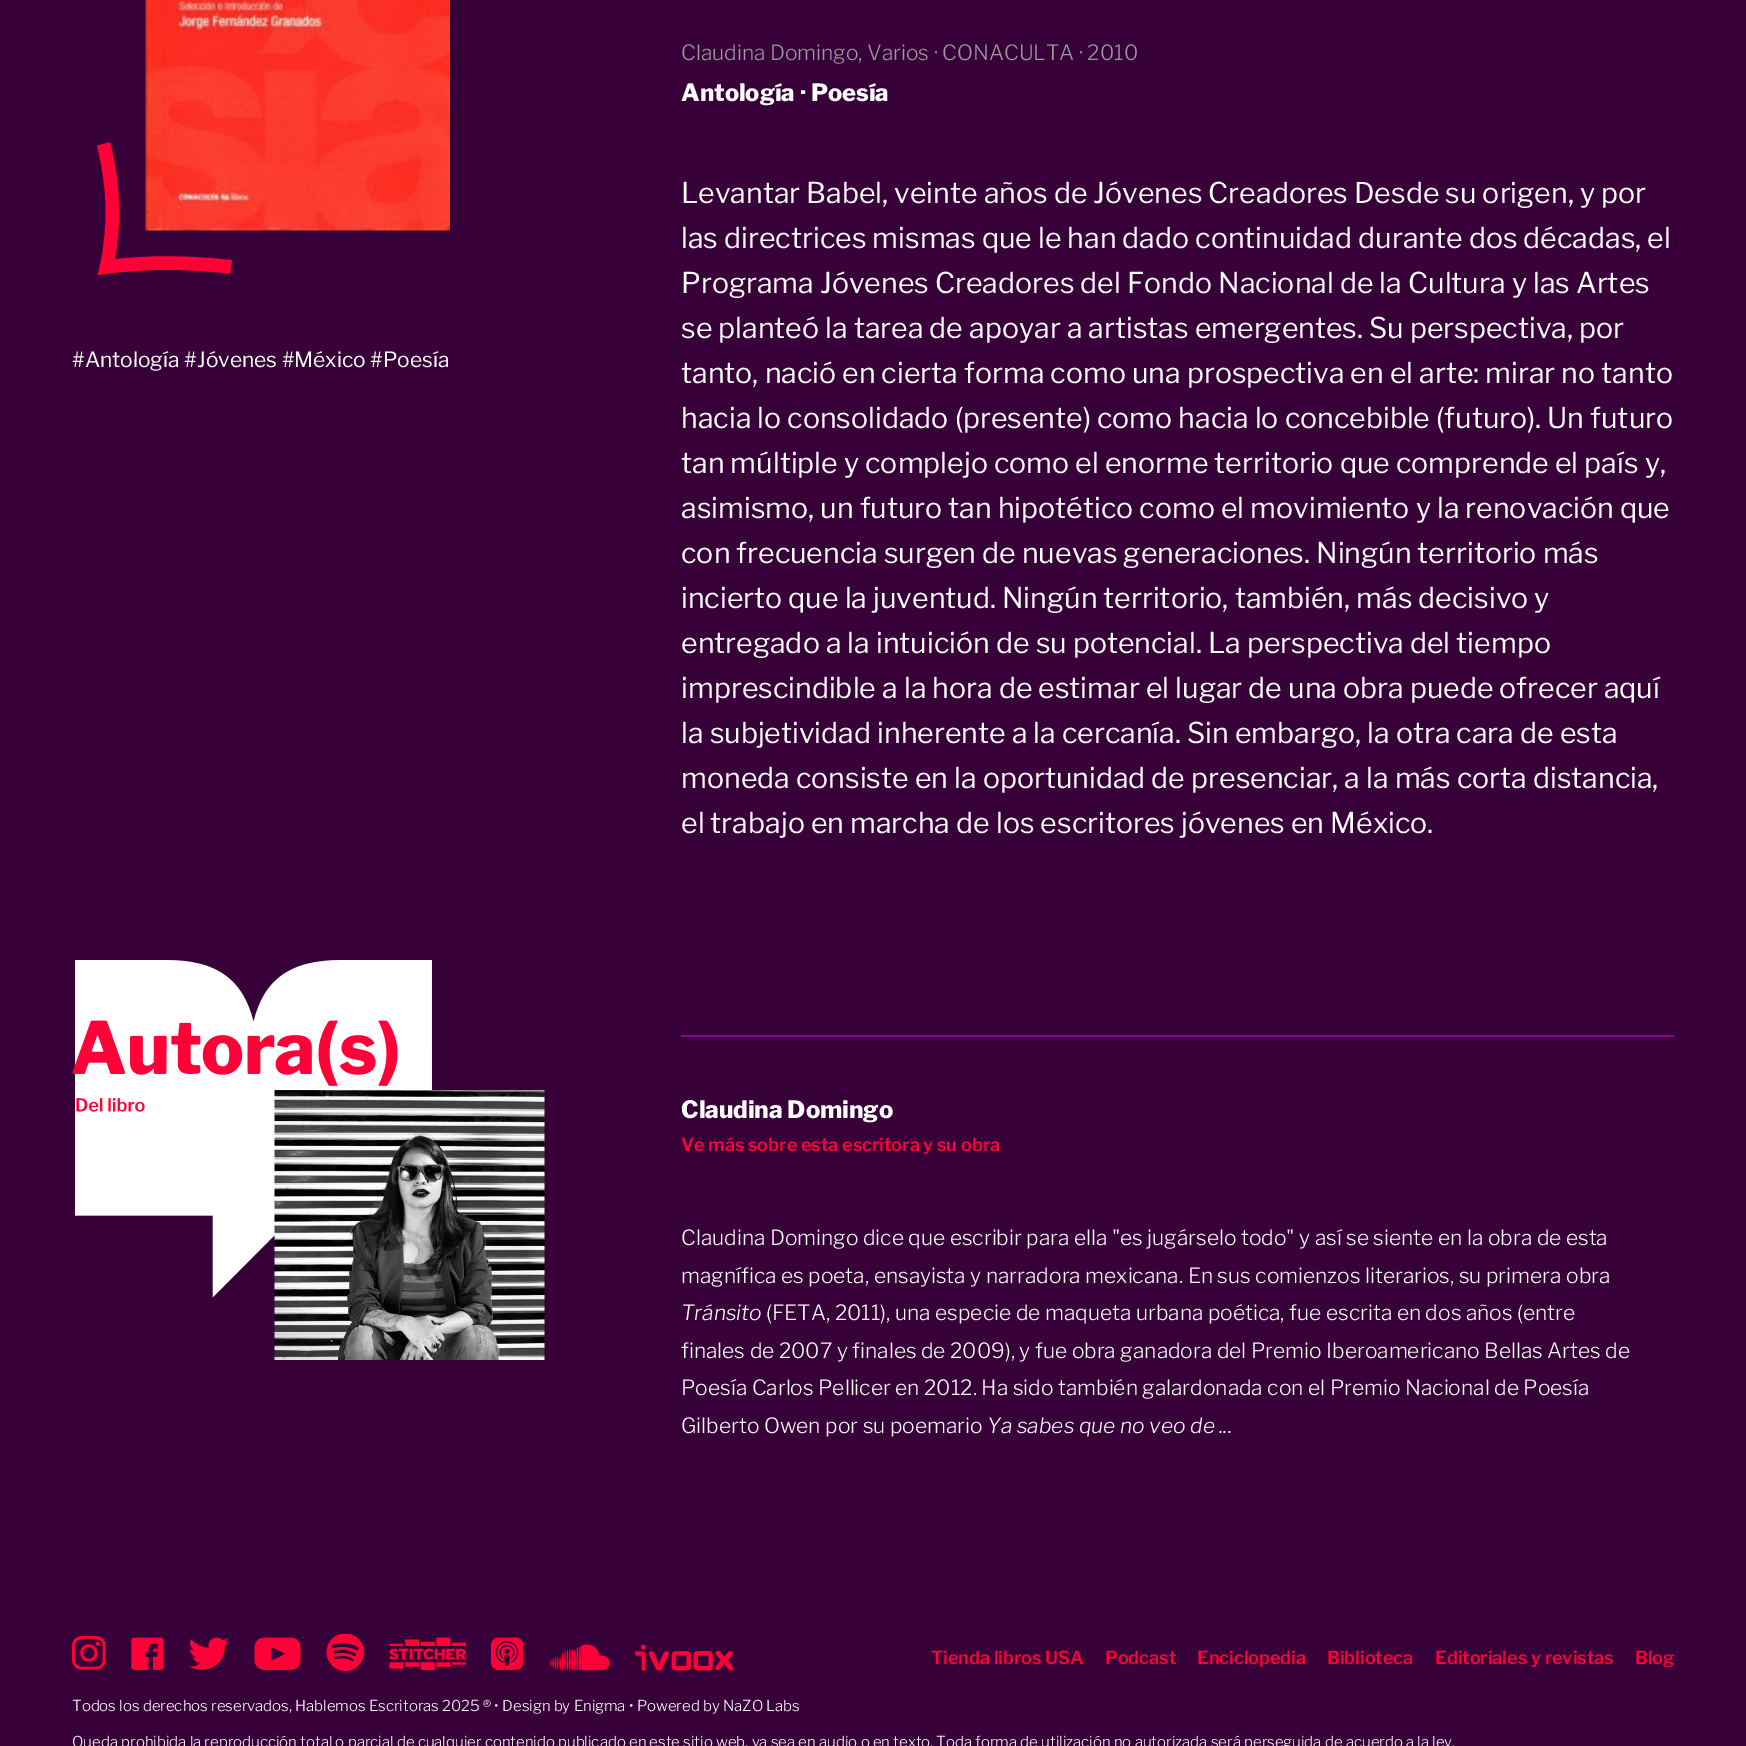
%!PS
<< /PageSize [1746 1746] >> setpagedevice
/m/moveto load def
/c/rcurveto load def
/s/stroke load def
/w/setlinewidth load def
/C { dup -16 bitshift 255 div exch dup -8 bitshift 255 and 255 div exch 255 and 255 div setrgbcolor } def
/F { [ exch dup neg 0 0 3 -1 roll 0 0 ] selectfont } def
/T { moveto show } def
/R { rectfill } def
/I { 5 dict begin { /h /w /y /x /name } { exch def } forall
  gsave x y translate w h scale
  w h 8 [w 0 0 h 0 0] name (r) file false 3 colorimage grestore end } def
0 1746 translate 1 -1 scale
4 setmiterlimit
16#380038 C
0 0 1746 1746 R
(1.rgb) 145 0 305 231 I
16#FF0037 C
13.5 w
103.5 144 m 10.5 40 12 82.5 3 123 c 41.5 -5.5 83.5 -5 124.5 0 c s
/LibreFranklin-Light 21 F
16#9B9B9B C
(Claudina Domingo, Varios · CONACULTA · 2010) 681 60 T
/LibreFranklin-ExtraBold 23.75 F
16#FFFFFF C
(Antología · Poesía) 681 101 T
/LibreFranklin-Regular 28.5 F
(Levantar Babel, veinte años de Jóvenes Creadores Desde su origen, y por) 681 203 T
(las directrices mismas que le han dado continuidad durante dos décadas, el) 681 248 T
(Programa Jóvenes Creadores del Fondo Nacional de la Cultura y las Artes) 681 293 T
(se planteó la tarea de apoyar a artistas emergentes. Su perspectiva, por) 681 338 T
(tanto, nació en cierta forma como una prospectiva en el arte: mirar no tanto) 681 383 T
(hacia lo consolidado \(presente\) como hacia lo concebible \(futuro\). Un futuro) 681 428 T
(tan múltiple y complejo como el enorme territorio que comprende el país y,) 681 473 T
(asimismo, un futuro tan hipotético como el movimiento y la renovación que) 681 518 T
(con frecuencia surgen de nuevas generaciones. Ningún territorio más) 681 563 T
(incierto que la juventud. Ningún territorio, también, más decisivo y) 681 608 T
(entregado a la intuición de su potencial. La perspectiva del tiempo) 681 653 T
(imprescindible a la hora de estimar el lugar de una obra puede ofrecer aquí) 681 698 T
(la subjetividad inherente a la cercanía. Sin embargo, la otra cara de esta) 681 743 T
(moneda consiste en la oportunidad de presenciar, a la más corta distancia,) 681 788 T
(el trabajo en marcha de los escritores jóvenes en México.) 681 833 T
/LibreFranklin-Regular 21 F
(#Antología #Jóvenes #México #Poesía) 72 367 T
(2.rgb) 72 960 360 338 I
16#8C0096 C
681 1035 993 2 R
(3.rgb) 274 1090 271 270 I
/LibreFranklin-ExtraBold 24 F
16#FFFFFF C
(Claudina Domingo) 681 1118 T
/LibreFranklin-SemiBold 18 F
16#FF0037 C
(Ve más sobre esta escritora y su obra) 681 1151 T
/LibreFranklin-Light 21 F
16#FFFFFF C
(Claudina Domingo dice que escribir para ella "es jugárselo todo" y así se siente en la obra de esta) 681 1245 T
(magnífica es poeta, ensayista y narradora mexicana. En sus comienzos literarios, su primera obra) 681 1283 T
/LibreFranklin-LightItalic 21 F
(Tránsito) 681 1320 T
/LibreFranklin-Light 21 F
(\(FETA, 2011\), una especie de maqueta urbana poética, fue escrita en dos años \(entre) 766 1320 T
(finales de 2007 y finales de 2009\), y fue obra ganadora del Premio Iberoamericano Bellas Artes de) 681 1358 T
(Poesía Carlos Pellicer en 2012. Ha sido también galardonada con el Premio Nacional de Poesía) 681 1395 T
(Gilberto Owen por su poemario) 681 1433 T
/LibreFranklin-LightItalic 21 F
(Ya sabes que no veo de ...) 987 1433 T
(4.rgb) 72 1636 34 34 I
(5.rgb) 131 1637 33 33 I
(6.rgb) 189 1637 40 33 I
(7.rgb) 254 1637 47 33 I
(8.rgb) 326 1634 38 37 I
(9.rgb) 389 1637 78 33 I
(10.rgb) 491 1637 33 33 I
(11.rgb) 550 1644 60 27 I
(12.rgb) 635 1644 99 27 I
/LibreFranklin-SemiBold 18 F
16#FF0037 C
(Tienda libros USA) 931 1664 T
(Podcast) 1105 1664 T
(Enciclopedia) 1197 1664 T
(Biblioteca) 1327 1664 T
(Editoriales y revistas) 1435 1664 T
(Blog) 1635 1664 T
/LibreFranklin-Light 15 F
16#FFFFFF C
(Todos los derechos reservados, Hablemos Escritoras 2025 ® • Design by Enigma • Powered by NaZO Labs) 72 1711 T
(Queda prohibida la reproducción total o parcial de cualquier contenido publicado en este sitio web, ya sea en audio o en texto. Toda forma de utilización no autorizada será perseguida de acuerdo a la ley.) 72 1747 T
showpage
